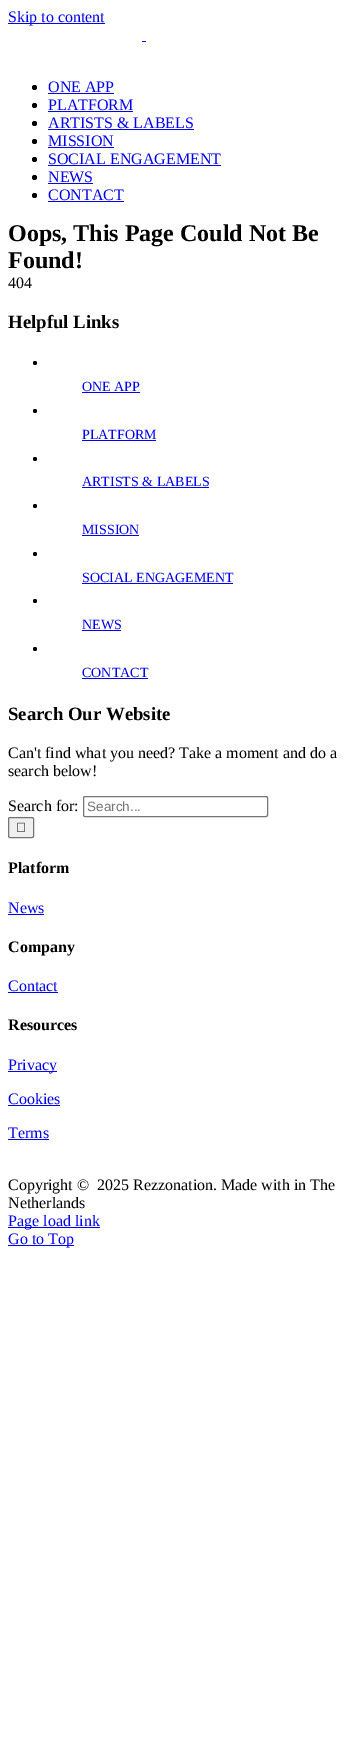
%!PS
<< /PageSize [350 1753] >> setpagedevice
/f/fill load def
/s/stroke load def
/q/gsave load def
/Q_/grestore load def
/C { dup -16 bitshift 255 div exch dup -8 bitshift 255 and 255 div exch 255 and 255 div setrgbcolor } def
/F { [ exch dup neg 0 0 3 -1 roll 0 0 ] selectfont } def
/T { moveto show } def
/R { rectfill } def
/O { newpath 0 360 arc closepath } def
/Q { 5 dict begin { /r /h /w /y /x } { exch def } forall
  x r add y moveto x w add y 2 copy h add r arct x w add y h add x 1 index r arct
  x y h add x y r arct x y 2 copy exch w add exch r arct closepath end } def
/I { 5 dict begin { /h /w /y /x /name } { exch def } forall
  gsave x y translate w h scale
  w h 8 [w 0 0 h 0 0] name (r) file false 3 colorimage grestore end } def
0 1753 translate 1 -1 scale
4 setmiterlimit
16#FFFFFF C
0 0 350 1753 R
16#0000EE C
8 23 97 1 R
/LiberationSerif-Regular 16 F
(Skip to content) 8 22 T
142 41 4 1 R
16#000000 C
34.5 87.5 2.5 O f
16#0000EE C
(ONE APP) 48 92 T
48 93 66 1 R
16#000000 C
34.5 105.5 2.5 O f
16#0000EE C
(PLATFORM) 48 110 T
48 111 85 1 R
16#000000 C
34.5 123.5 2.5 O f
16#0000EE C
(ARTISTS & LABELS) 48 128 T
48 129 146 1 R
16#000000 C
34.5 141.5 2.5 O f
16#0000EE C
(MISSION) 48 146 T
48 147 66 1 R
16#000000 C
34.5 159.5 2.5 O f
16#0000EE C
(SOCIAL ENGAGEMENT) 48 164 T
48 165 173 1 R
16#000000 C
34.5 177.5 2.5 O f
16#0000EE C
(NEWS) 48 182 T
48 183 45 1 R
16#000000 C
34.5 195.5 2.5 O f
16#0000EE C
(CONTACT) 48 200 T
48 201 76 1 R
/LiberationSerif-Bold 24 F
16#000000 C
(Oops, This Page Could Not Be) 8 241 T
(Found!) 8 268 T
/LiberationSerif-Regular 16 F
(404) 8 288 T
/LiberationSerif-Bold 18.75 F
(Helpful Links) 8 328 T
35 363 2 O f
/LiberationSerif-Regular 14 F
16#0000EE C
(ONE APP) 82 391 T
82 392 58 1 R
16#000000 C
35 411 2 O f
16#0000EE C
(PLATFORM) 82 439 T
82 440 74 1 R
16#000000 C
35 459 2 O f
16#0000EE C
(ARTISTS & LABELS) 82 486 T
82 487 127 1 R
16#000000 C
35 506 2 O f
16#0000EE C
(MISSION) 82 534 T
82 535 57 1 R
16#000000 C
35 554 2 O f
16#0000EE C
(SOCIAL ENGAGEMENT) 82 582 T
82 583 151 1 R
16#000000 C
35 601 2 O f
16#0000EE C
(NEWS) 82 629 T
82 630 39 1 R
16#000000 C
35 649 2 O f
16#0000EE C
(CONTACT) 82 677 T
82 678 66 1 R
/LiberationSerif-Bold 18.75 F
16#000000 C
(Search Our Website) 8 720 T
/LiberationSerif-Regular 16 F
(Can't find what you need? Take a moment and do a) 8 758 T
(search below!) 8 776 T
(Search for:) 8 811 T
16#767676 C
83.5 796.5 184 20 1.5 Q s
/LiberationSans-Regular 13.5 F
16#757575 C
(Search...) 87 811 T
16#EFEFEF C
8.5 817.5 25 20 1.5 Q q f Q_
16#767676 C
s
(1.rgb) 17 822 8 10 I
/LiberationSerif-Bold 16 F
16#000000 C
(Platform) 8 873 T
/LiberationSerif-Regular 16 F
16#0000EE C
(News) 8 913 T
8 914 36 1 R
/LiberationSerif-Bold 16 F
16#000000 C
(Company) 8 952 T
/LiberationSerif-Regular 16 F
16#0000EE C
(Contact) 8 991 T
8 992 50 1 R
/LiberationSerif-Bold 16 F
16#000000 C
(Resources) 8 1030 T
16#0000EE C
8 1071 49 1 R
/LiberationSerif-Regular 16 F
(Privacy) 8 1070 T
(Cookies) 8 1104 T
8 1105 52 1 R
(Terms) 8 1138 T
8 1139 41 1 R
16#000000 C
(Copyright ©) 8 1190 T
(2025 Rezzonation. Made with in The) 97 1190 T
(Netherlands) 8 1208 T
16#0000EE C
8 1227 92 1 R
(Page load link) 8 1226 T
8 1245 66 1 R
(Go to Top) 8 1244 T
showpage
